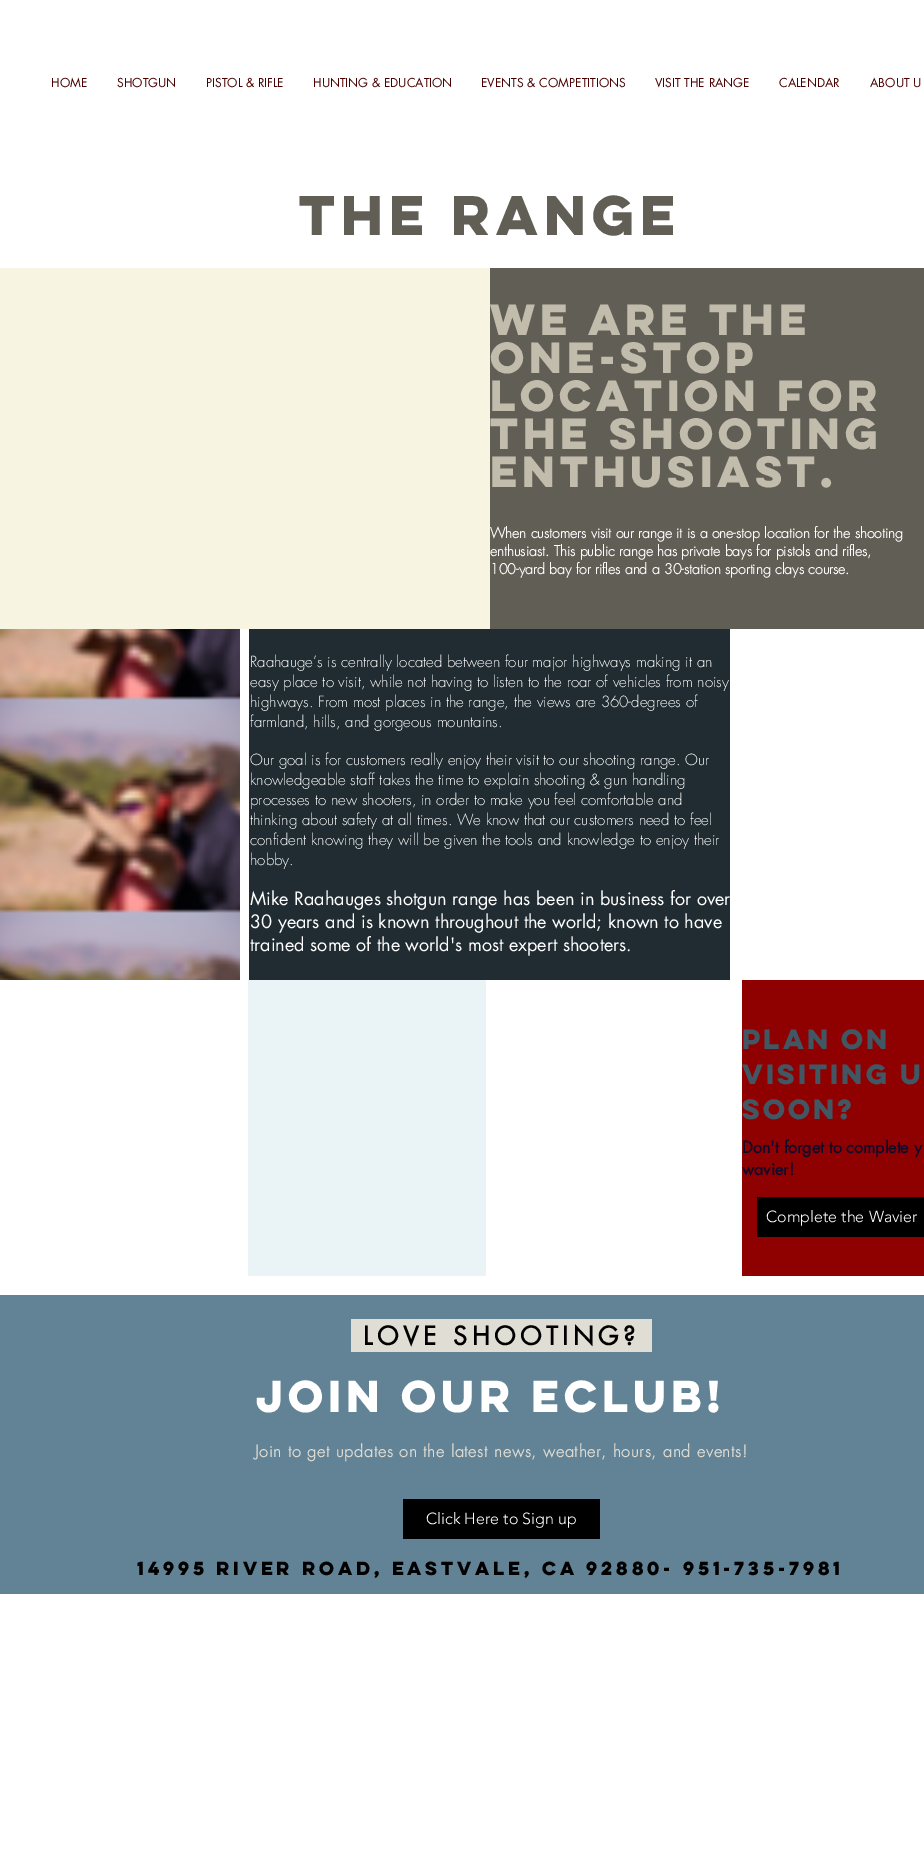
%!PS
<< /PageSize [924 1872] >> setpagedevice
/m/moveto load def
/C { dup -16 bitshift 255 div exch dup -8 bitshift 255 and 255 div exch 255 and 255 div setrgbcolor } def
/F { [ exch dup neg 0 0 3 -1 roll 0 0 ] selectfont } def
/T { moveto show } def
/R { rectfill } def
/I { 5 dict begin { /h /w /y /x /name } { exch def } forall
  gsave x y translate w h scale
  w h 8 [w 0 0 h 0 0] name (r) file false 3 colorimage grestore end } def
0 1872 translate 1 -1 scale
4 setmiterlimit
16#FFFFFF C
0 0 924 1872 R
/futura-Regular 12 F
16#480000 C
(HOME) 51 87 T
(SHOTGUN) 117 87 T
(PISTOL & RIFLE) 206 87 T
(HUNTING & EDUCATION) 313 87 T
(EVENTS & COMPETITIONS) 481 87 T
(VISIT THE RANGE) 655 87 T
(CALENDAR) 779 87 T
(ABOUT U) 870 87 T
/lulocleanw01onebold-Bold 50 F
16#615E56 C
299 235 m -5 0 (The Range) ashow
16#F7F5E1 C
0 268 490 361 R
16#615E56 C
490 268 434 361 R
/lulocleanw01onebold-Bold 39 F
16#C1BCAC C
490 335 m -3.9 0 (we are The) ashow
490 373 m -3.9 0 (One-Stop) ashow
490 411 m -3.9 0 (Location for) ashow
490 449 m -3.9 0 (the Shooting) ashow
490 487 m -3.9 0 (Enthusiast.) ashow
/futura-Bold 14 F
16#FFFFFF C
(When customers visit our range it is a one-stop location for the shooting) 490 538 T
(enthusiast. This public range has private bays for pistols and rifles,) 490 556 T
(100-yard bay for rifles and a 30-station sporting clays course.) 490 574 T
(1.rgb) 0 629 240 351 I
16#212C32 C
249 629 481 351 R
/futura-Light 15 F
16#FFFFFF C
(Raahauge’s is centrally located between four major highways making it an) 250 667 T
(easy place to visit, while not having to listen to the roar of vehicles from noisy) 250 687 T
(highways. From most places in the range, the views are 360-degrees of) 250 707 T
(farmland, hills, and gorgeous mountains.) 250 727 T
(Our goal is for customers really enjoy their visit to our shooting range. Our) 250 765 T
(knowledgeable staff takes the time to explain shooting & gun handling) 250 785 T
(processes to new shooters, in order to make you feel comfortable and) 250 805 T
(thinking about safety at all times. We know that our customers need to feel) 250 825 T
(confident knowing they will be given the tools and knowledge to enjoy their) 250 845 T
(hobby.) 250 865 T
/futura-Regular 18 F
(Mike Raahauges shotgun range has been in business for over) 250 905 T
(30 years and is known throughout the world; known to have) 250 928 T
(trained some of the world's most expert shooters.) 250 951 T
16#EAF4F6 C
248 980 238 296 R
16#8F0101 C
742 980 182 296 R
/lulocleanw01onebold-Bold 25 F
16#415763 C
742 1049 m -2.5 0 (Plan on) ashow
742 1084 m -2.5 0 (visiting u) ashow
742 1119 m -2.5 0 (soon?) ashow
/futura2-Bold 16 F
16#110A2B C
(Don't forget to complete y) 742 1153 T
(wavier!) 742 1175 T
16#000000 C
757 1197 167 40 R
/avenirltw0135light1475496-Light 16 F
16#FFFFFF C
(Complete the Wavier) 766 1222 T
16#628395 C
0 1295 924 299 R
16#E0DDD4 C
351 1319 301 33 R
/futura2-Bold 25 F
16#000000 C
363 1345 m 4.5 0 (LOVE SHOOTING?) ashow
/lulocleanw01onebold-Bold 40 F
16#FFFFFF C
256 1412 m -4 0 (JOIN OUR ECLUB!) ashow
/futura-Bold 16 F
16#E0DDD4 C
255 1457 m .8 0 (Join to get updates on the latest news, weather, hours, and events!) ashow
16#000000 C
403 1499 197 40 R
/avenirltw0135light1475496-Light 16 F
16#FFFFFF C
(Click Here to Sign up) 426 1524 T
/lulocleanw01onebold-Bold 17 F
16#000000 C
(14995 River road, eastvale, ca 92880- 951-735-7981) 137 1575 T
showpage
